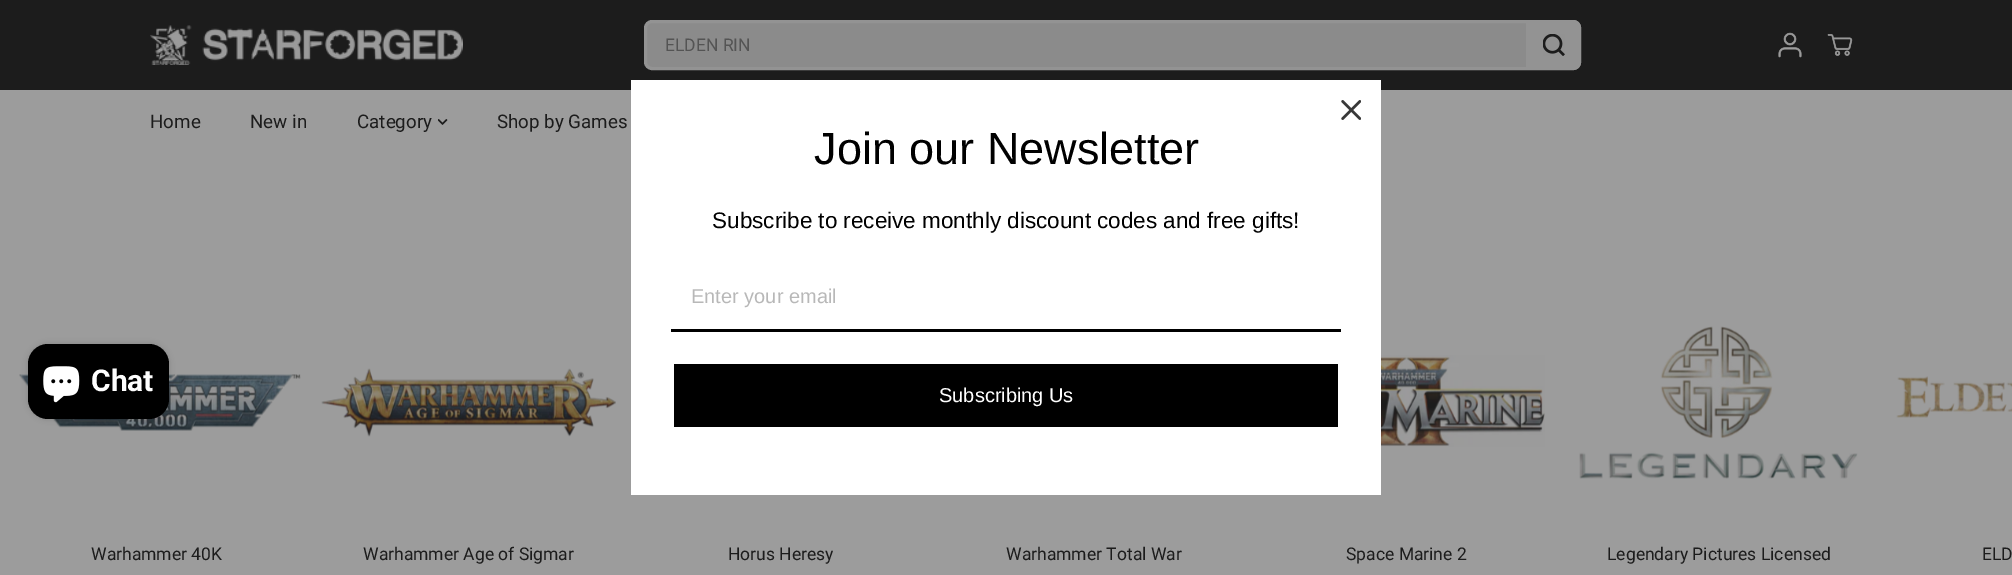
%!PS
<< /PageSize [2012 575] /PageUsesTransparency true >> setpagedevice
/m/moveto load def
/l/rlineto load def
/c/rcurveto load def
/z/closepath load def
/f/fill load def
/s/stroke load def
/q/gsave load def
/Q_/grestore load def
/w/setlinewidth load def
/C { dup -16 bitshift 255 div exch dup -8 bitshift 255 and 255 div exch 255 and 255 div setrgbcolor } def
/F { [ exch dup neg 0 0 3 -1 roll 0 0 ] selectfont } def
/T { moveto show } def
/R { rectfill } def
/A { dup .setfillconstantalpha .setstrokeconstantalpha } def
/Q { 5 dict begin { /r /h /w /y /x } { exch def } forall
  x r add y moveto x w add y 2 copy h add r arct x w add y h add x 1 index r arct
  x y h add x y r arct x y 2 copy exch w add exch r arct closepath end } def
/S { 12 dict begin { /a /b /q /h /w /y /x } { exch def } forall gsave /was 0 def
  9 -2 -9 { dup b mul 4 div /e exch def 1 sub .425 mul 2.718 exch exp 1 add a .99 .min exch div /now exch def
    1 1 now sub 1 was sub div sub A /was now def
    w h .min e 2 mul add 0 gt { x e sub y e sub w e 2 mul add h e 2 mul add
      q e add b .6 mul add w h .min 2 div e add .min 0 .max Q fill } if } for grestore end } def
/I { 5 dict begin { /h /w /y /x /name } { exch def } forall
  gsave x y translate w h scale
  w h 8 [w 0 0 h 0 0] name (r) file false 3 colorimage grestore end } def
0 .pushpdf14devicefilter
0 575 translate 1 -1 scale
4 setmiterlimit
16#9C9C9C C
0 0 2012 575 R
16#1C1C1C C
0 0 2012 90 R
(1.rgb) 150 25 313 40 I
16#8B8B8B C
645.5 21.5 934 47 6.5 Q q f Q_
16#939393 C
3 w
s
/Roboto-Regular 17.5 F
16#545454 C
(ELDEN RIN) 665 51 T
16#939393 C
1526 20 m 47 0 l 4.5 0 8 3.5 8 8 c 0 34 l 0 4.5 -3.5 8 -8 8 c -47 0 l z f
(2.rgb) 1543 34 22 22 I
(3.rgb) 1778 32 24 26 I
(4.rgb) 1827 34 26 22 I
/Roboto-Regular 18.75 F
16#1C1C1C C
(Home) 150 128 T
(New in) 250 128 T
(Category) 357 128 T
(5.rgb) 438 119 10 6 I
(Shop by Games) 497 128 T
(6.rgb) 19 374 282 57 I
/Roboto-Regular 17.5 F
(Warhammer 40K) 91 560 T
(7.rgb) 321 368 295 69 I
(Warhammer Age of Sigmar) 363 560 T
(Horus Heresy) 728 560 T
(Warhammer Total War) 1006 560 T
(8.rgb) 1381 355 164 92 I
(Space Marine 2) 1346 560 T
(9.rgb) 1579 326 279 153 I
(Legendary Pictures Licensed) 1607 560 T
(10.rgb) 1896 376 116 42 I
(ELD) 1982 560 T
16#000000 C
28 344 141 75 20 3 .15 S
28 344 141 75 20 Q f
(11.rgb) 43 366 37 37 I
/Roboto-Bold 30 F
16#FFFFFF C
(Chat) 91 391 T
631 80 750 415 R
(12.rgb) 1341 100 20 20 I
/LiberationSans-Regular 45 F
16#000000 C
(Join our Newsletter) 814 164 T
/LiberationSans-Regular 22.5 F
(Subscribe to receive monthly discount codes and free gifts!) 712 228 T
671 329 670 3 R
/LiberationSans-Regular 20 F
16#B8B8B8 C
(Enter your email) 691 303 T
16#000000 C
674 364 664 63 R
16#FFFFFF C
(Subscribing Us) 939 402 T
.poppdf14devicefilter showpage
